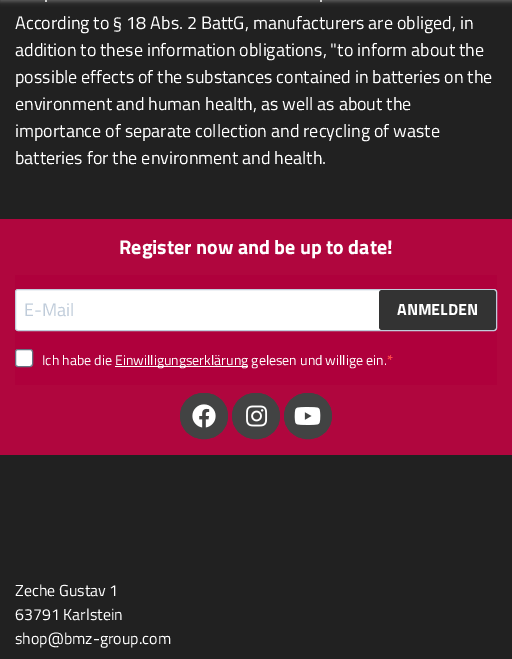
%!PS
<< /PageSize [512 659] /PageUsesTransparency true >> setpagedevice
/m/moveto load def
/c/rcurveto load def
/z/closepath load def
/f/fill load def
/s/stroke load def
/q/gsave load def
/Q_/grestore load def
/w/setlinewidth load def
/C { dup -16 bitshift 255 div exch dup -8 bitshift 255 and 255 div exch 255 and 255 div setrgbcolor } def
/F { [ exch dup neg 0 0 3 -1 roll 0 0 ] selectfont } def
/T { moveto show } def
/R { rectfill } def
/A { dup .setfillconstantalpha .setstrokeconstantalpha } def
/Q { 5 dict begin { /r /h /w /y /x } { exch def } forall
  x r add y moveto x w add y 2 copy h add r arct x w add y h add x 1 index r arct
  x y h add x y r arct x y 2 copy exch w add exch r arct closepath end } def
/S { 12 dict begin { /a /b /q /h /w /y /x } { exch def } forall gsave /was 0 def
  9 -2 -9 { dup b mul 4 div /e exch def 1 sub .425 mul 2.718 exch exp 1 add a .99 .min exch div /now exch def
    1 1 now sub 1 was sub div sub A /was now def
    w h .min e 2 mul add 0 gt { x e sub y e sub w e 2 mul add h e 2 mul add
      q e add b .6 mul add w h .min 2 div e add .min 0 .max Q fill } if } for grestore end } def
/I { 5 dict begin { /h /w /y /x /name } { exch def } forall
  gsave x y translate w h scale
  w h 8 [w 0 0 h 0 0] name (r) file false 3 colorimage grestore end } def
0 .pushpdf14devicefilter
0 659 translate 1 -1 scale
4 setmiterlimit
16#212121 C
0 0 512 659 R
16#BEBEBE C
0 -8 512 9 0 2.5 .5 S
/TitilliumWeb-Regular 18 F
16#FFFFFF C
(.) 44 2 T
(.) 319 2 T
(According to § 18 Abs. 2 BattG, manufacturers are obliged, in) 15 29 T
(addition to these information obligations, "to inform about the) 15 56 T
(possible effects of the substances contained in batteries on the) 15 83 T
(environment and human health, as well as about the) 15 110 T
(importance of separate collection and recycling of waste) 15 137 T
(batteries for the environment and health.) 15 164 T
16#B0063E C
0 219 512 236 R
/TitilliumWeb-Bold 20 F
16#FFFFFF C
(Register now and be up to date!) 119 254 T
16#AF003C C
15 275 482 110 R
16#FFFFFF C
15.5 289.5 481 41 2.5 Q q f Q_
16#C0CCDA C
s
/TitilliumWeb-Regular 18 F
(E-Mail) 24 316 T
16#333333 C
379 290 117 40 3 Q f
/TitilliumWeb-Bold 16 F
16#FFFFFF C
(ANMELDEN) 397 315 T
15.5 349.5 17 17 2.5 Q q f Q_
16#687484 C
s
/TitilliumWeb-Regular 14 F
16#FFFFFF C
(Ich habe die) 42 365 T
115 366 133 1 R
(Einwilligungserklärung gelesen und willige ein.) 115 365 T
/TitilliumWeb-Bold 14 F
16#FF4949 C
(*) 387 365 T
16#424343 C
204 393 m 13.5 0 24 10.5 24 23 c 0 12.5 -10.5 23 -24 23 c -13.5 0 -24 -10.5 -24 -23 c 0 -12.5 10.5 -23 24 -23 c z f
2 w
204 394 m 30.5 0 30.5 44 0 44 c -30.5 0 -30.5 -44 0 -44 c z s
(1.rgb) 192 404 24 24 I
256 393 m 13.5 0 24 10.5 24 23 c 0 12.5 -10.5 23 -24 23 c -13.5 0 -24 -10.5 -24 -23 c 0 -12.5 10.5 -23 24 -23 c z f
256 394 m 30.5 0 30.5 44 0 44 c -30.5 0 -30.5 -44 0 -44 c z s
(2.rgb) 246 405 22 22 I
308 393 m 13.5 0 24 10.5 24 23 c 0 12.5 -10.5 23 -24 23 c -13.5 0 -24 -10.5 -24 -23 c 0 -12.5 10.5 -23 24 -23 c z f
308 394 m 30.5 0 30.5 44 0 44 c -30.5 0 -30.5 -44 0 -44 c z s
(3.rgb) 294 407 27 18 I
/TitilliumWeb-Regular 16 F
16#FFFFFF C
(Zeche Gustav 1) 15 596 T
(63791 Karlstein) 15 620 T
(shop@bmz-group.com) 15 644 T
.poppdf14devicefilter showpage
